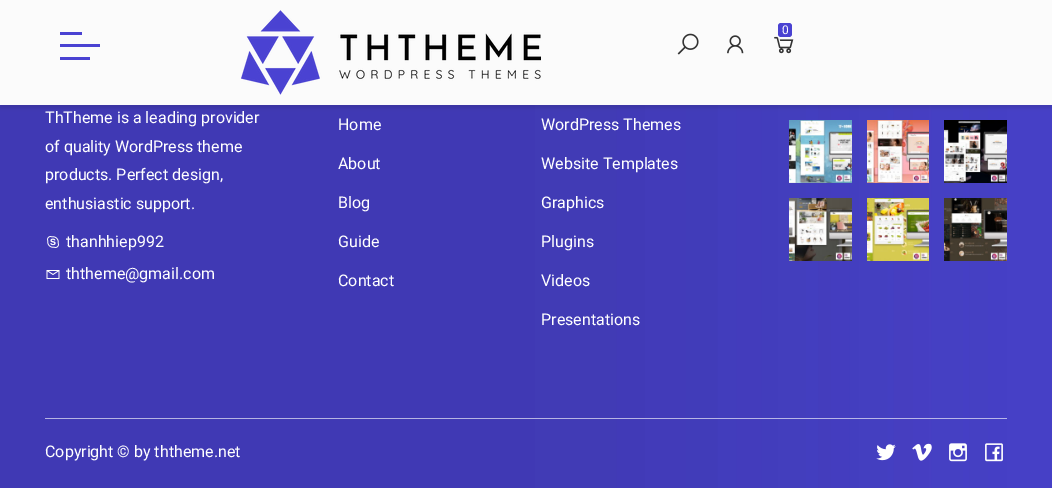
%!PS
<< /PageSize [1052 488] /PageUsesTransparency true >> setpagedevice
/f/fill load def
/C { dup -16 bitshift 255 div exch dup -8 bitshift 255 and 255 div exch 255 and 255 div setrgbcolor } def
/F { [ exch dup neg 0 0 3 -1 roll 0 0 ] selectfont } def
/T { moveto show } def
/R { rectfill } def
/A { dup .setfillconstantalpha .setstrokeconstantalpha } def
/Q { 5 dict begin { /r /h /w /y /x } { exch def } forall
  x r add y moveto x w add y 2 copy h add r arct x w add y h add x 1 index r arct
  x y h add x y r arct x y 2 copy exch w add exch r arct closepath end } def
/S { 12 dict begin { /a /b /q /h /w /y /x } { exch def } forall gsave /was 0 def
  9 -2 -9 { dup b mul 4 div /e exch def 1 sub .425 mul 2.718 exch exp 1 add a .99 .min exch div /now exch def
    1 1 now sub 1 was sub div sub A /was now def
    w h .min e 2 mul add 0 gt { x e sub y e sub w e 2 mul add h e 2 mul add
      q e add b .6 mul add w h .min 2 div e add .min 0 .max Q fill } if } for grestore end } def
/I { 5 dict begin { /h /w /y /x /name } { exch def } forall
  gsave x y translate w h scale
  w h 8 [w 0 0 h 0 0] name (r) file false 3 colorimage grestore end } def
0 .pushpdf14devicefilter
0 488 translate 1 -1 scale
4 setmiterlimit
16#FFFFFF C
0 0 1052 488 R
(5.rgb) 0 105 1052 383 I
16#000000 C
0 3 1052 105 0 1.5 .1 S
16#FBFBFB C
0 0 1052 105 R
(1.rgb) 241 10 300 85 I
(2.rgb) 774 36 20 18 I
16#4A42D2 C
778 23 14 14 3 Q f
/Roboto-Regular 12 F
16#FFFFFF C
(0) 782 34 T
(3.rgb) 677 33 22 22 I
(4.rgb) 727 35 17 19 I
16#4A42D2 C
60 32 22 3 R
60 57 30 3 R
60 44 40 3 R
/Roboto-Regular 16 F
16#FFFFFF C
(ThTheme is a leading provider) 45 123 T
(of quality WordPress theme) 45 152 T
(products. Perfect design,) 45 180 T
(enthusiastic support.) 45 209 T
(6.rgb) 47 236 12 12 I
(thanhhiep992) 66 247 T
(7.rgb) 46 270 14 9 I
(ththeme@gmail.com) 66 279 T
(Home) 338 130 T
(About) 338 169 T
(Blog) 338 208 T
(Guide) 338 247 T
(Contact) 338 286 T
(WordPress Themes) 541 130 T
(Website Templates) 541 169 T
(Graphics) 541 208 T
(Plugins) 541 247 T
(Videos) 541 286 T
(Presentations) 541 325 T
(8.rgb) 789 120 63 63 I
(9.rgb) 867 120 62 63 I
(10.rgb) 944 120 63 63 I
(11.rgb) 789 198 63 63 I
(12.rgb) 867 198 62 63 I
(13.rgb) 944 198 63 63 I
0.62 A
45 418 962 1 R
1 A
(Copyright © by ththeme.net) 45 457 T
(14.rgb) 876 444 20 17 I
(15.rgb) 912 443 20 18 I
(16.rgb) 949 443 18 19 I
(17.rgb) 985 443 18 19 I
.poppdf14devicefilter showpage
